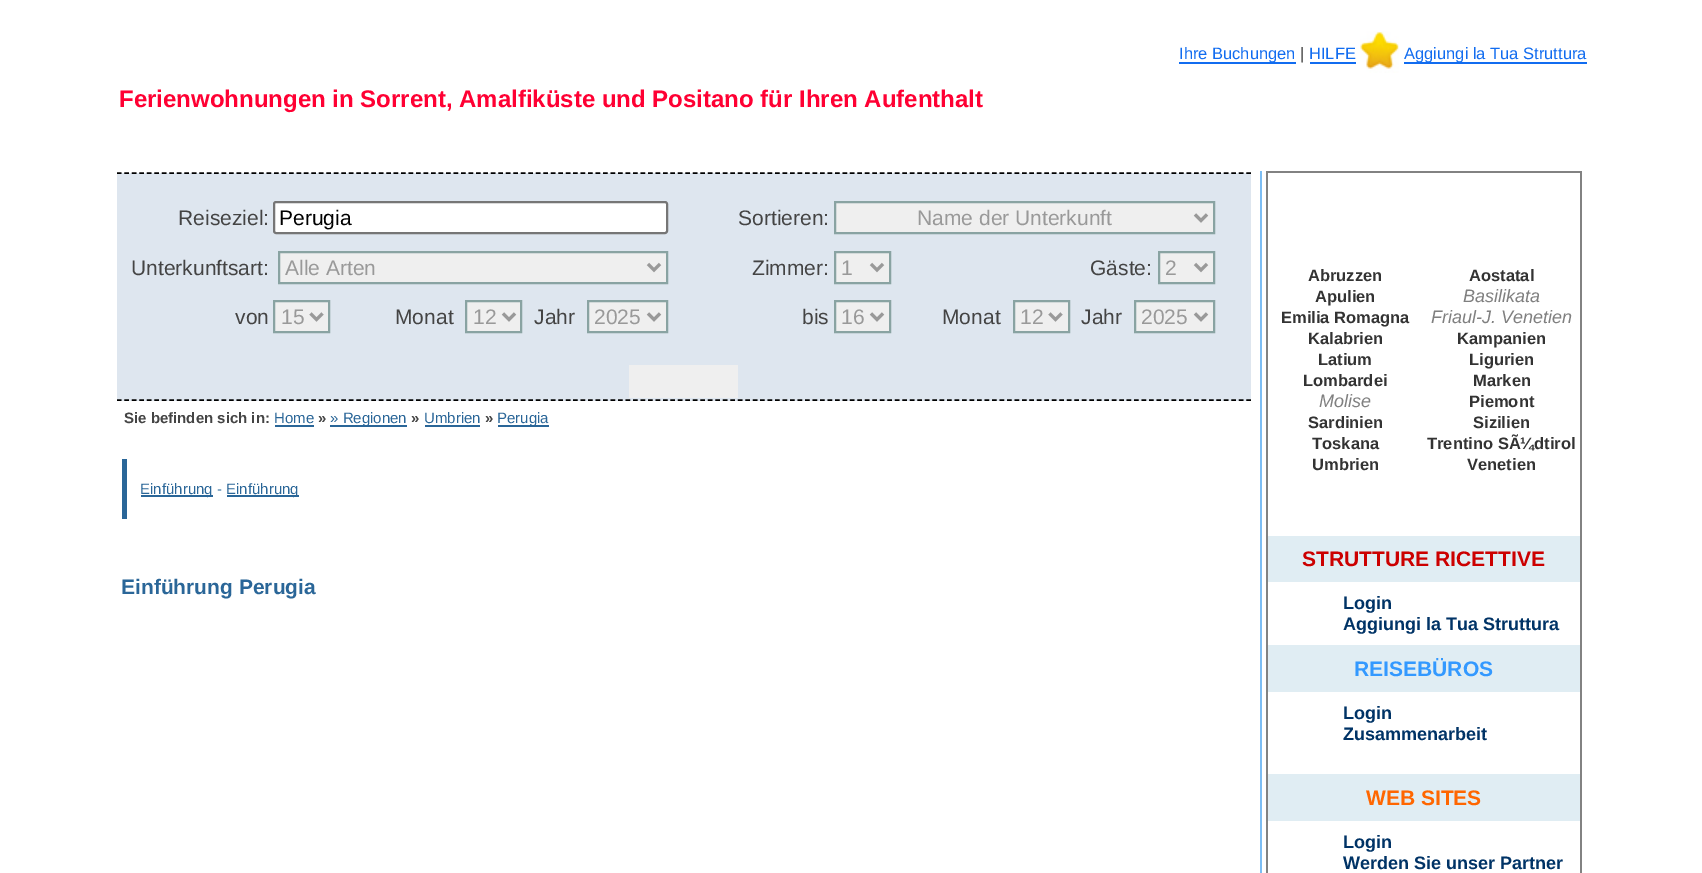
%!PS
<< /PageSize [1702 873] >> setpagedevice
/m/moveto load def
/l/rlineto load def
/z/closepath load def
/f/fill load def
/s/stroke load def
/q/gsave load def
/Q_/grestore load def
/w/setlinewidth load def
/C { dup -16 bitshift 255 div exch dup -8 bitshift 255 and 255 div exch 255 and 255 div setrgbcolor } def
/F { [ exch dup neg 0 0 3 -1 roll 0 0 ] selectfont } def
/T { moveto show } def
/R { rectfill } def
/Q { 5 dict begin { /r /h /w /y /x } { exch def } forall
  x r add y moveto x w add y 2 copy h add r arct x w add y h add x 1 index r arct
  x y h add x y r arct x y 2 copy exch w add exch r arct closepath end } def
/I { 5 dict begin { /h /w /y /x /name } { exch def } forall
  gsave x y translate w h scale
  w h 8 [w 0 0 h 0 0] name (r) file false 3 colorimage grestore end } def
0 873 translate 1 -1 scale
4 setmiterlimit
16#FFFFFF C
0 0 1702 873 R
16#116CF0 C
1179 62 117 2 R
/LiberationSans-Regular 16.5 F
(Ihre Buchungen) 1179 59 T
16#333333 C
(|) 1300 59 T
16#116CF0 C
(HILFE) 1309 59 T
1310 62 46 2 R
(1.rgb) 1360 31 39 42 I
1404 62 183 2 R
(Aggiungi la Tua Struttura) 1404 59 T
/LiberationSans-Bold 24 F
16#FF0033 C
(Ferienwohnungen in Sorrent, Amalfiküste und Positano für Ihren Aufenthalt) 119 107 T
16#7CBDF3 C
1260 171 2 702 R
16#DEE6EF C
117 173 1134 228 R
16#000000 C
1.5 w
[4.5 2.98] 0 setdash
117 173 m 1134 0 l s
117 400 m 1134 0 l s
/LiberationSans-Regular 21 F
16#444444 C
(Reiseziel:) 178 225 T
16#FFFFFF C
274 202 393 31 2 Q q f Q_
16#767676 C
2 w
[] 0 setdash
s
16#000000 C
(Perugia) 279 225 T
16#444444 C
(Sortieren:) 738 225 T
16#EFEFEF C
835 202 m 379 0 l 0 31 l -379 0 l z q f Q_
16#89A3A2 C
s
16#999999 C
3 w
1195 214.5 m 6 6 l 6 -6 l s
(Name der Unterkunft) 917 225 T
16#444444 C
(Unterkunftsart:) 131 275 T
16#EFEFEF C
279 252 m 388 0 l 0 31 l -388 0 l z q f Q_
16#89A3A2 C
2 w
s
16#999999 C
3 w
648 264 m 6 6 l 6 -6 l s
(Alle Arten) 285 275 T
16#444444 C
(Zimmer:) 752 275 T
16#EFEFEF C
835 252 m 55 0 l 0 31 l -55 0 l z q f Q_
16#89A3A2 C
2 w
s
16#999999 C
3 w
871 264 m 6 6 l 6 -6 l s
(1) 841 275 T
16#444444 C
(Gäste:) 1090 275 T
16#EFEFEF C
1159 252 m 55 0 l 0 31 l -55 0 l z q f Q_
16#89A3A2 C
2 w
s
16#999999 C
3 w
1195 264 m 6 6 l 6 -6 l s
(2) 1165 275 T
16#444444 C
(von) 235 324 T
16#EFEFEF C
274 301 m 55 0 l 0 31 l -55 0 l z q f Q_
16#89A3A2 C
2 w
s
16#999999 C
3 w
310.5 313.5 m 6 6 l 6 -6 l s
(15) 281 324 T
16#444444 C
(Monat) 395 324 T
16#EFEFEF C
466 301 m 55 0 l 0 31 l -55 0 l z q f Q_
16#89A3A2 C
2 w
s
16#999999 C
3 w
503 313.5 m 6 6 l 6 -6 l s
(12) 473 324 T
16#444444 C
(Jahr) 534 324 T
16#EFEFEF C
588 301 m 79 0 l 0 31 l -79 0 l z q f Q_
16#89A3A2 C
2 w
s
16#999999 C
3 w
648 313.5 m 6 6 l 6 -6 l s
(2025) 594 324 T
16#444444 C
(bis) 802 324 T
16#EFEFEF C
835 301 m 55 0 l 0 31 l -55 0 l z q f Q_
16#89A3A2 C
2 w
s
16#999999 C
3 w
871 313.5 m 6 6 l 6 -6 l s
(16) 841 324 T
16#444444 C
(Monat) 942 324 T
16#EFEFEF C
1014 301 m 55 0 l 0 31 l -55 0 l z q f Q_
16#89A3A2 C
2 w
s
16#999999 C
3 w
1049.5 313.5 m 6 6 l 6 -6 l s
(12) 1020 324 T
16#444444 C
(Jahr) 1081 324 T
16#EFEFEF C
1135 301 m 79 0 l 0 31 l -79 0 l z q f Q_
16#89A3A2 C
2 w
s
16#999999 C
3 w
1195 313.5 m 6 6 l 6 -6 l s
(2025) 1141 324 T
16#EFEFEF C
629 365 109 33 R
/LiberationSans-Bold 15 F
16#444444 C
(Sie befinden sich in:) 124 423 T
/LiberationSans-Regular 15 F
16#2A6698 C
(Home) 274 423 T
275 425 39 2 R
/LiberationSans-Bold 15 F
16#444444 C
(») 318 423 T
16#2A6698 C
330 425 77 2 R
/LiberationSans-Regular 15 F
(» Regionen) 330 423 T
/LiberationSans-Bold 15 F
16#444444 C
(») 411 423 T
/LiberationSans-Regular 15 F
16#2A6698 C
(Umbrien) 424 423 T
425 425 55 2 R
/LiberationSans-Bold 15 F
16#444444 C
(») 485 423 T
16#2A6698 C
498 425 51 2 R
/LiberationSans-Regular 15 F
(Perugia) 497 423 T
122 459 5 60 R
141 495 72 2 R
(Einführung -) 140 494 T
227 495 72 2 R
(Einführung) 226 494 T
/LiberationSans-Bold 21 F
(Einführung Perugia) 121 594 T
16#828282 C
1266 171 315 2 R
1580 171 2 702 R
1266 171 2 702 R
/LiberationSans-Bold 16.5 F
16#333333 C
(Abruzzen) 1308 281 T
(Apulien) 1315 302 T
(Emilia Romagna) 1281 323 T
(Kalabrien) 1308 344 T
(Latium) 1318 365 T
(Lombardei) 1303 386 T
/LiberationSans-Italic 18 F
16#808080 C
(Molise) 1319 407 T
/LiberationSans-Bold 16.5 F
16#333333 C
(Sardinien) 1308 428 T
(Toskana) 1312 449 T
(Umbrien) 1312 470 T
(Aostatal) 1469 281 T
/LiberationSans-Italic 18 F
16#808080 C
(Basilikata) 1463 302 T
(Friaul-J. Venetien) 1431 323 T
/LiberationSans-Bold 16.5 F
16#333333 C
(Kampanien) 1457 344 T
(Ligurien) 1469 365 T
(Marken) 1473 386 T
(Piemont) 1469 407 T
(Sizilien) 1473 428 T
(Trentino SÃ¼dtirol) 1427 449 T
(Venetien) 1467 470 T
16#E0EDF3 C
1268 536 312 46 R
/LiberationSans-Bold 21 F
16#CC0000 C
(STRUTTURE RICETTIVE) 1302 566 T
/LiberationSans-Bold 18 F
16#003366 C
(Login) 1343 609 T
(Aggiungi la Tua Struttura) 1343 630 T
16#E0EDF3 C
1268 645 312 47 R
/LiberationSans-Bold 21 F
16#3399FF C
(REISEBÜROS) 1354 676 T
/LiberationSans-Bold 18 F
16#003366 C
(Login) 1343 719 T
(Zusammenarbeit) 1343 740 T
16#E0EDF3 C
1268 774 312 47 R
/LiberationSans-Bold 21 F
16#FF6600 C
(WEB SITES) 1366 805 T
/LiberationSans-Bold 18 F
16#003366 C
(Login) 1343 848 T
(Werden Sie unser Partner) 1343 869 T
showpage
